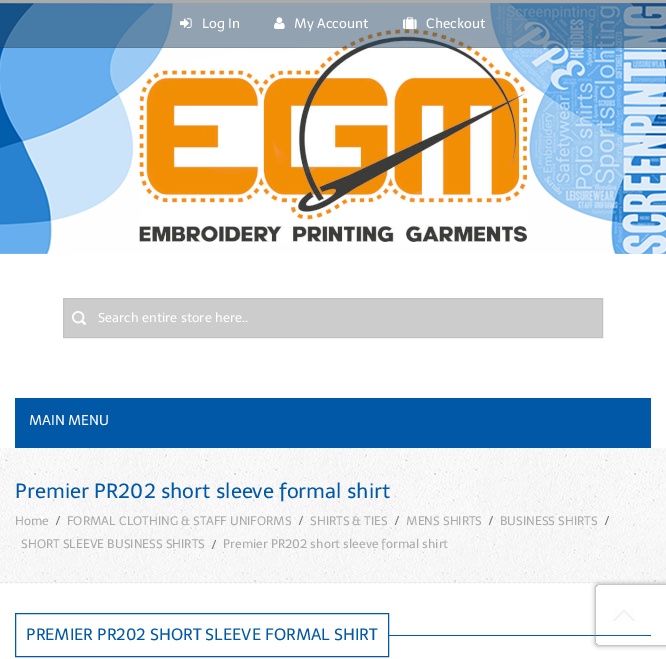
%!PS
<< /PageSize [666 659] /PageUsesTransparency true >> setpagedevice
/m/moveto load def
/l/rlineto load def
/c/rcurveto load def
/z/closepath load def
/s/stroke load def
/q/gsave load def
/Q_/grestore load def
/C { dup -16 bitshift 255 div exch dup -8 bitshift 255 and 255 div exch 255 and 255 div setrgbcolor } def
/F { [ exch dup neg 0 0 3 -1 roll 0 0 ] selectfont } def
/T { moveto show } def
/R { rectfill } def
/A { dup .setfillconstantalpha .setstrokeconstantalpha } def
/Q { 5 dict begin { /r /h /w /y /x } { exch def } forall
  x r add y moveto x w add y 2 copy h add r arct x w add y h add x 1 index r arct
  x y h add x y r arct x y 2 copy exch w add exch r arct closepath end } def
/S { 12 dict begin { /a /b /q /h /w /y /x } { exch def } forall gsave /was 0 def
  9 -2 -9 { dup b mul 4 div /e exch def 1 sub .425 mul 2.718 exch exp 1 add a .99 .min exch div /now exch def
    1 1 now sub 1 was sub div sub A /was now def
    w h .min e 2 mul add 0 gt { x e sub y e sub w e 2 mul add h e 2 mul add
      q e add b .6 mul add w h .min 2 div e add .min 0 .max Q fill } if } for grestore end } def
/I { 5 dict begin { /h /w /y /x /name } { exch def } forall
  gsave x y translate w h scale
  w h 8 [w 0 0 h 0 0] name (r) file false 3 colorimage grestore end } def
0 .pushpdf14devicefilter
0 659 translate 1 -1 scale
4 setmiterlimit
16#FFFFFF C
0 0 666 659 R
(1.rgb) 0 3 666 251 I
16#AAAAAA C
0 0 666 3 R
0.5 A
16#274762 C
0 3 666 45 R
0.1 A
16#000000 C
0 47 666 1 R
1 A
(2.rgb) 180 18 12 10 I
/Telex-Regular 13.5 F
16#FFFFFF C
(Log In) 202 28 T
(3.rgb) 274 17 11 12 I
(My Account) 294 28 T
(4.rgb) 403 17 14 12 I
(Checkout) 426 28 T
16#CCCCCC C
64 299 538 38 R
(5.rgb) 72 311 14 14 I
16#C2C2C2 C
63.5 298.5 539 39 rectstroke
/Telex-Regular 13 F
16#FFFFFF C
(Search entire store here..) 98 322 T
16#0058A6 C
15 398 636 50 R
/Telex-Regular 14 F
16#FFFFFF C
(MAIN MENU) 29 425 T
(6.rgb) 0 448 666 135 I
16#E9E9E9 C
[3 1.98] 0 setdash
0 582.5 m 666 0 l s
/Telex-Regular 20.4 F
16#0058A6 C
(Premier PR202 short sleeve formal shirt) 15 498 T
(7.rgb) 55 516 6 9 I
/Telex-Regular 12.25 F
16#AAAAAA C
(Home) 15 525 T
(8.rgb) 298 516 6 9 I
(FORMAL CLOTHING & STAFF UNIFORMS) 67 525 T
(9.rgb) 394 516 6 9 I
(SHIRTS & TIES) 310 525 T
(10.rgb) 488 516 6 9 I
(MENS SHIRTS) 406 525 T
(11.rgb) 604 516 6 9 I
(BUSINESS SHIRTS) 500 525 T
(12.rgb) 211 540 6 9 I
(SHORT SLEEVE BUSINESS SHIRTS) 21 548 T
(Premier PR202 short sleeve formal shirt) 223 548 T
16#0058A6 C
389 635 262 1 R
16#0E60AA C
601 635 45 1 R
q
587 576 m 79 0 l 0 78 l -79 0 l z 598 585 m 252 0 l 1 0 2 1 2 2 c 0 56 l 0 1 -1 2 -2 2 c -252 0 l -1 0 -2 -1 -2 -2 c 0 -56 l 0 -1 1 -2 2 -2 c z eoclip newpath
16#808080 C
596 585 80 60 2 2.5 1 S
Q_
(13.rgb) 613 610 22 11 I
16#0058A6 C
[] 0 setdash
15.5 613.5 373 43 rectstroke
/Telex-Regular 16.3 F
(PREMIER PR202 SHORT SLEEVE FORMAL SHIRT) 26 640 T
.poppdf14devicefilter showpage
